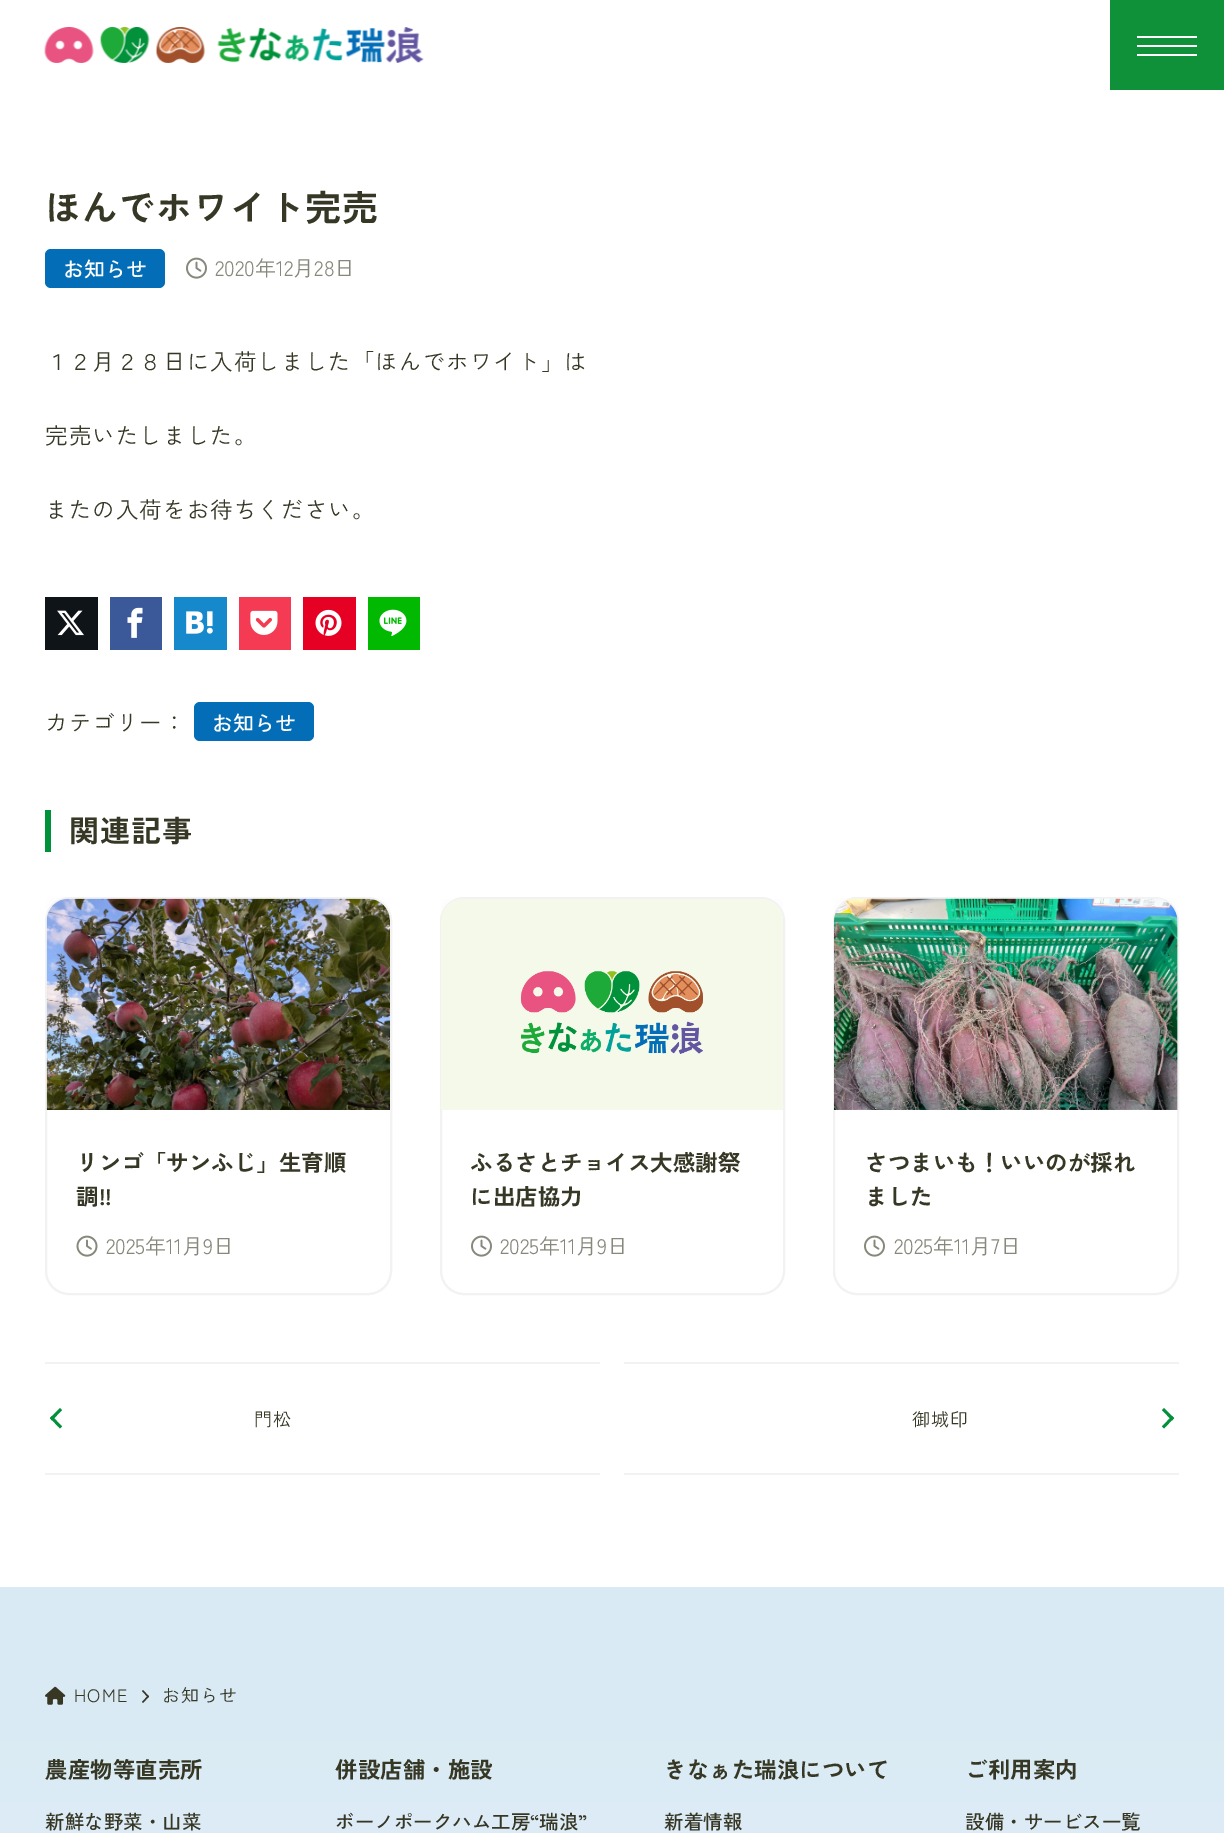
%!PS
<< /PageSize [1224 1833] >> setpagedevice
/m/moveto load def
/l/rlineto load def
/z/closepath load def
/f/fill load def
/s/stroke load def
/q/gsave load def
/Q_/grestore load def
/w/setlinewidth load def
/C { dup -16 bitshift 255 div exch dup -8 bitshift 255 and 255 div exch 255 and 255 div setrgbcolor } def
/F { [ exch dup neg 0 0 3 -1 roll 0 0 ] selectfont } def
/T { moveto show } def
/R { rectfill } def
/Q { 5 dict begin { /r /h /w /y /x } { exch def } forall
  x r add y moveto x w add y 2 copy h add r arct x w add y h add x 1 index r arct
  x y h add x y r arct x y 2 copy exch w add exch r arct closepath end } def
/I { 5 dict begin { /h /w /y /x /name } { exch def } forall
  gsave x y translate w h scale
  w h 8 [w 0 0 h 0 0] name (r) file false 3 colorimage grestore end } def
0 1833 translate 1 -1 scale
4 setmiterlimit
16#FFFFFF C
0 0 1224 1833 R
(1.rgb) 44 27 380 36 I
16#0F913A C
1110 0 114 90 R
16#FFFFFF C
1137 36 60 2 R
1137 45 60 2 R
1137 54 60 2 R
/ZenKakuGothicNew-Bold 36 F
16#373725 C
45 221 m 1.1 0 (ほんでホワイト完売) ashow
16#036EB7 C
45 249 120 39 6 Q f
/ZenKakuGothicNew-Medium 21 F
16#FFFFFF C
(お知らせ) 63 277 T
(2.rgb) 186 257 21 22 I
/ZenKakuGothicNew-Regular 21 F
16#87877C C
(2020年12月28日) 215 276 T
/ZenKakuGothicNew-Regular 22.5 F
16#373725 C
45 370 m 1.1 0 (１２月２８日に入荷しました「ほんでホワイト」は) ashow
45 444 m 1.1 0 (完売いたしました。) ashow
45 518 m 1.1 0 (またの入荷をお待ちください。) ashow
16#0F1419 C
45 597 53 53 R
(3.rgb) 57 610 27 26 I
16#3B5998 C
110 597 52 53 R
(4.rgb) 127 607 16 31 I
16#1589CC C
174 597 53 53 R
(5.rgb) 186 611 27 23 I
16#F43B53 C
239 597 52 53 R
(6.rgb) 250 610 28 25 I
16#E60023 C
303 597 53 53 R
(7.rgb) 315 609 27 27 I
16#00B900 C
368 597 52 53 R
(8.rgb) 379 609 28 28 I
16#373725 C
45 731 m 1.1 0 (カテゴリー：) ashow
16#036EB7 C
194 702 120 39 6 Q f
/ZenKakuGothicNew-Medium 21 F
16#FFFFFF C
(お知らせ) 212 731 T
16#00913A C
45 810 6 42 R
/ZenKakuGothicNew-Bold 30 F
16#373725 C
69 842 m 1.1 0 (関連記事) ashow
16#F2F2F2 C
2 w
46 898 345 396 23 Q s
(9.rgb) 46 898 344 212 I
/ZenKakuGothicNew-Bold 22.5 F
16#373725 C
(リンゴ「サンふじ」生育順) 76 1171 T
(調!!) 76 1205 T
(10.rgb) 76 1235 22 22 I
/ZenKakuGothicNew-Regular 21 F
16#87877C C
(2025年11月9日) 106 1254 T
16#F2F2F2 C
441 898 343 396 23 Q s
(11.rgb) 441 899 342 211 I
/ZenKakuGothicNew-Bold 22.5 F
16#373725 C
(ふるさとチョイス大感謝祭) 470 1171 T
(に出店協力) 470 1205 T
(2.rgb) 471 1235 21 22 I
/ZenKakuGothicNew-Regular 21 F
16#87877C C
(2025年11月9日) 500 1254 T
16#F2F2F2 C
834 898 344 396 23 Q s
(12.rgb) 834 898 344 212 I
/ZenKakuGothicNew-Bold 22.5 F
16#373725 C
(さつまいも！いいのが採れ) 865 1171 T
(ました) 865 1205 T
(2.rgb) 864 1235 21 22 I
/ZenKakuGothicNew-Regular 21 F
16#87877C C
(2025年11月7日) 894 1254 T
16#F2F2F2 C
45 1362 555 2 R
45 1473 555 2 R
16#00913A C
52 1416 m 10 10.5 l -2 2 l -10 -10.5 l z f
60 1408 m 2 2 l -10 10.5 l -2 -2.5 l z f
/ZenKakuGothicNew-Regular 18 F
16#373725 C
254 1426 m 1.1 0 (門松) ashow
16#F2F2F2 C
624 1362 555 2 R
624 1473 555 2 R
16#373725 C
912 1426 m 1.1 0 (御城印) ashow
16#00913A C
1164 1408 m 10 10 l -2 2.5 l -10 -10.5 l z f
1172 1416 m 2 2 l -10 10.5 l -2 -2 l z f
q 0 1587 m 1224 0 l 0 246 l -1224 0 l z clip newpath
<< /ShadingType 2 /ColorSpace /DeviceRGB /Coords [612 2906 612 1587] /Extend [true true] /Function << /FunctionType 3 /Domain [0 1] /Functions [<< /FunctionType 2 /Domain [0 1] /C0 [1 1 1] /C1 [1 1 1] /N 1 >> << /FunctionType 2 /Domain [0 1] /C0 [1 1 1] /C1 [.851 .918 .957] /N 1 >> << /FunctionType 2 /Domain [0 1] /C0 [.851 .918 .957] /C1 [.851 .918 .957] /N 1 >>] /Bounds [.15 .9] /Encode [0 1 0 1 0 1] >> >> shfill Q_
(13.rgb) 45 1686 21 19 I
16#373725 C
74 1702 m 1.1 0 (HOME) ashow
16#373724 C
143 1690 m 6 6.5 l -1 1 l -6 -6.5 l z f
148 1695.5 m 1 1 l -6 6.5 l -1 -1 l z f
16#373725 C
162 1702 m 1.1 0 (お知らせ) ashow
/ZenKakuGothicNew-Bold 22.5 F
(農産物等直売所) 45 1778 T
/ZenKakuGothicNew-Medium 19.5 F
(新鮮な野菜・山菜) 45 1829 T
/ZenKakuGothicNew-Bold 22.5 F
(併設店舗・施設) 335 1778 T
/ZenKakuGothicNew-Medium 19.5 F
(ボーノポークハム工房“瑞浪”) 335 1829 T
/ZenKakuGothicNew-Bold 22.5 F
(きなぁた瑞浪について) 664 1778 T
/ZenKakuGothicNew-Medium 19.5 F
(新着情報) 664 1829 T
/ZenKakuGothicNew-Bold 22.5 F
(ご利用案内) 965 1778 T
/ZenKakuGothicNew-Medium 19.5 F
(設備・サービス一覧) 965 1829 T
showpage
